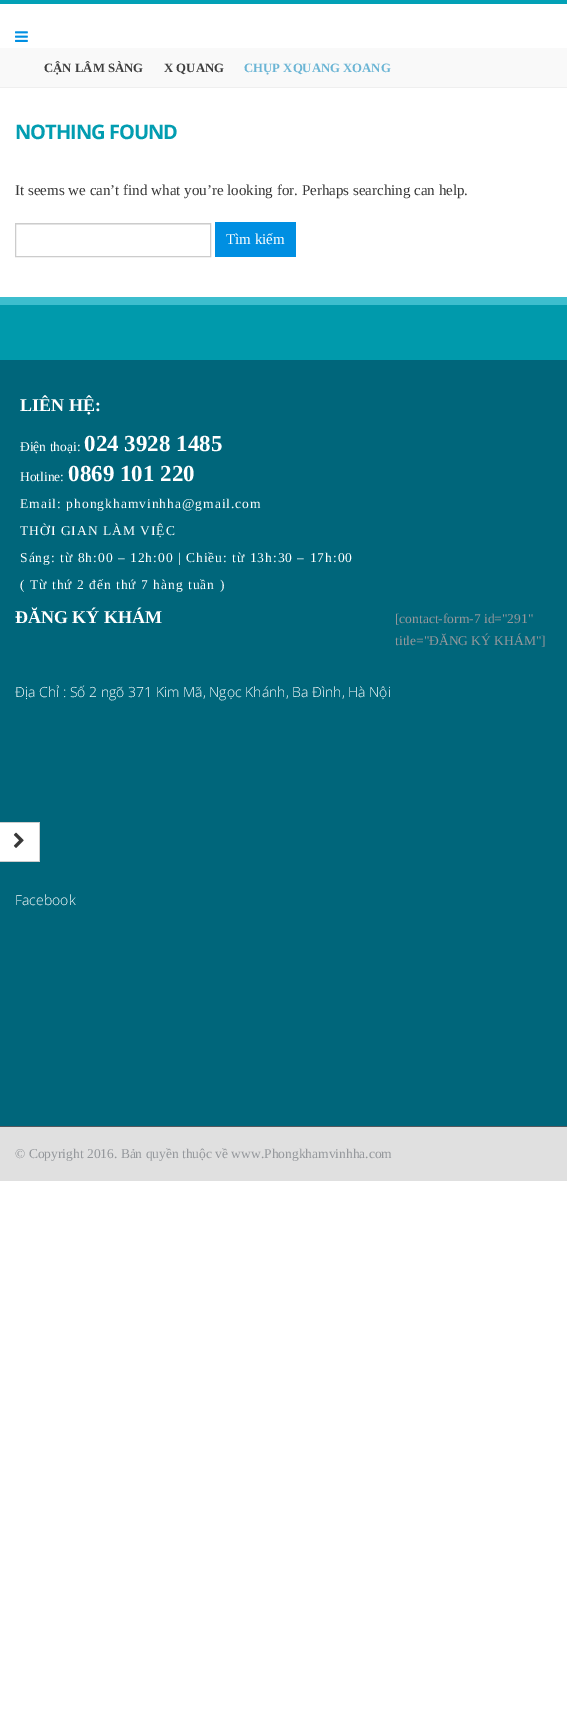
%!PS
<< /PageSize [567 1724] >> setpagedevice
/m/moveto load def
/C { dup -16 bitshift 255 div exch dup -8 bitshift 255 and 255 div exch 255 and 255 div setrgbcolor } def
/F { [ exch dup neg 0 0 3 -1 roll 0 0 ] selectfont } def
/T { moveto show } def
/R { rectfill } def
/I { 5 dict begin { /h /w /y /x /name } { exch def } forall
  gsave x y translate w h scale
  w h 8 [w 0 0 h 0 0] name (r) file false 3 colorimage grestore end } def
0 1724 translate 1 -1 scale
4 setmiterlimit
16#FFFFFF C
0 0 567 1724 R
16#02A1B6 C
0 0 567 4 R
(1.rgb) 15 31 13 11 I
16#F9F9F9 C
0 48 567 39 R
16#EFEFEF C
0 87 567 1 R
/LiberationSerif-Bold 12.75 F
16#3E3E3E C
(CẬN LÂM SÀNG) 44 72 T
(X QUANG) 164 72 T
16#6BB5D5 C
(CHỤP XQUANG XOANG) 244 72 T
/OpenSans-Bold 20 F
16#029DB1 C
15 139 m -1 0 (NOTHING FOUND) ashow
/LiberationSerif-Regular 15 F
16#383838 C
(It seems we can’t find what you’re looking for. Perhaps searching can help.) 15 195 T
16#ECECEC C
16 224 194 1 R
16#CCCCCC C
15.5 223.5 195 33 rectstroke
16#008FE2 C
215 222 81 35 R
16#FFFFFF C
(Tìm kiếm) 226 244 T
16#009AAC C
0 305 567 55 R
16#3CBECE C
0 297 567 8 R
16#00667B C
0 360 567 766 R
/LiberationSerif-Bold 18 F
16#FFFFFF C
(LIÊN HỆ:) 20 411 T
/LiberationSerif-Regular 13.5 F
(Điện thoại:) 20 451 T
/LiberationSerif-Bold 23 F
(024 3928 1485) 84 451 T
/LiberationSerif-Regular 13.5 F
(Hotline:) 20 481 T
/LiberationSerif-Bold 23 F
(0869 101 220) 68 481 T
/LiberationSerif-Regular 13.5 F
20 508 m 1 0 (Email: phongkhamvinhha@gmail.com) ashow
20 535 m 1 0 (THỜI GIAN LÀM VIỆC) ashow
20 562 m 1 0 (Sáng: từ 8h:00 – 12h:00 | Chiều: từ 13h:30 – 17h:00) ashow
20 589 m 1 0 (\( Từ thứ 2 đến thứ 7 hàng tuần \)) ashow
/LiberationSerif-Bold 18 F
(ĐĂNG KÝ KHÁM) 15 623 T
/LiberationSerif-Regular 13.5 F
16#95989C C
([contact-form-7 id="291") 395 623 T
(title="ĐĂNG KÝ KHÁM"]) 395 645 T
/OpenSans-Light 14 F
16#FFFFFF C
(Địa Chỉ : Số 2 ngõ 371 Kim Mã, Ngọc Khánh, Ba Đình, Hà Nội) 15 697 T
(Facebook) 15 905 T
16#E0E0E0 C
0 1127 567 54 R
16#53585E C
0 1126 567 1 R
/LiberationSerif-Regular 13.5 F
16#95989C C
(© Copyright 2016. Bản quyền thuộc về www.Phongkhamvinhha.com) 15 1158 T
16#FFFFFF C
0 823 39 38 R
16#CCCCCC C
0 822 40 1 R
39 822 1 40 R
0 861 40 1 R
(2.rgb) 13 832 11 16 I
showpage
